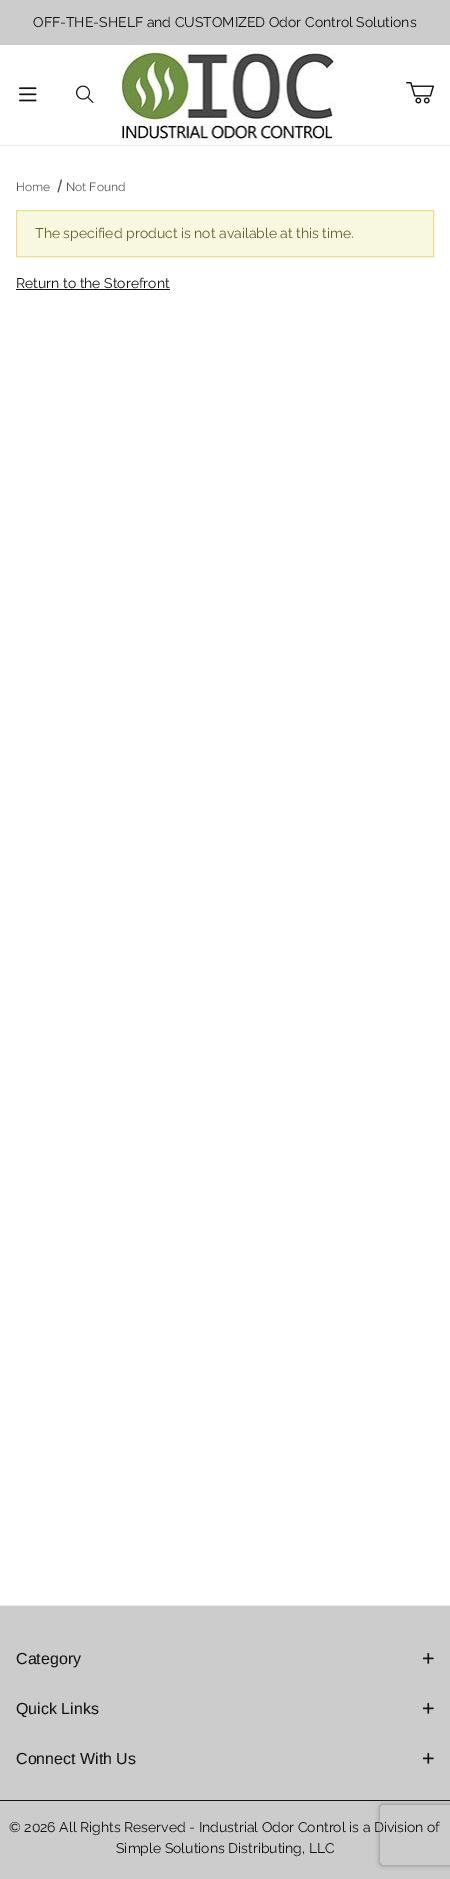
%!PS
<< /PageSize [450 1879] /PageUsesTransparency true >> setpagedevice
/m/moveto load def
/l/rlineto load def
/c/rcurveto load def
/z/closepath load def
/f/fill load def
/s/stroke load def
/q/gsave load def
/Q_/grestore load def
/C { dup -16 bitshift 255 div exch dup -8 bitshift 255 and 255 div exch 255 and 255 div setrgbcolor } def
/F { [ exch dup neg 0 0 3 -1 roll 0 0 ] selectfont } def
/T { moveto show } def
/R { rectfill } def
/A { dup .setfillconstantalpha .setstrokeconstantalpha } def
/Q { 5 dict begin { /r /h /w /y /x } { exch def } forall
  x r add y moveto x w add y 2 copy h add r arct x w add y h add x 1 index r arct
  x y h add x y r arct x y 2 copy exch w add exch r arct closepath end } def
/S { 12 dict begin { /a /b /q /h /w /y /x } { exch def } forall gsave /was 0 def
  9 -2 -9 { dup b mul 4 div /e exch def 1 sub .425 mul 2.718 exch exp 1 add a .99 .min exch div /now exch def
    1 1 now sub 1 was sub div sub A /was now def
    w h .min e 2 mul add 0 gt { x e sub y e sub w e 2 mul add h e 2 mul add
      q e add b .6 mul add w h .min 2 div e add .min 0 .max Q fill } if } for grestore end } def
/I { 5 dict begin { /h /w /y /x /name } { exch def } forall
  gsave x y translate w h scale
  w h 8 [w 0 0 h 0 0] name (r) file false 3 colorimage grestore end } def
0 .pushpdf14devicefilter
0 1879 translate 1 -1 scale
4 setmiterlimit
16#FFFFFF C
0 0 450 1879 R
16#EAEAEA C
0 145 450 1 R
16#CCCCCC C
0 0 450 45 R
/Raleway-Regular 14 F
16#111111 C
(OFF-THE-SHELF and CUSTOMIZED Odor Control Solutions) 33 27 T
(1.rgb) 19 87 18 15 I
(2.rgb) 76 85 18 18 I
(3.rgb) 116 45 220 96 I
(4.rgb) 406 82 28 22 I
/Raleway-Regular 12 F
16#575A5D C
(Home) 16 191 T
61 179.5 m 1 .5 l -3.5 12.5 l -1 -.5 l z f
(Not Found) 66 191 T
16#F8F8E1 C
16.5 210.5 m 417 0 l 0 46 l -417 0 l z q f Q_
16#E6E086 C
s
/Raleway-Regular 14 F
16#65602E C
(The specified product is not available at this time.) 35 238 T
16#111111 C
(Return to the Storefront) 16 288 T
16 289 154 1 R
16#CCCCCC C
0 1606 450 273 R
16#EAEAEA C
0 1605 450 1 R
/LiberationSans-Regular 16 F
16#111111 C
(Category) 16 1664 T
(5.rgb) 423 1653 11 11 I
(Quick Links) 16 1714 T
(5.rgb) 423 1703 11 11 I
(Connect With Us) 16 1764 T
(5.rgb) 423 1753 11 11 I
0 1800 450 1 R
/Raleway-Regular 14 F
(© 2026 All Rights Reserved - Industrial Odor Control is a Division of) 9 1832 T
(Simple Solutions Distributing, LLC) 116 1853 T
q
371 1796 m 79 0 l 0 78 l -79 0 l z 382 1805 m 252 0 l 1 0 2 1 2 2 c 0 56 l 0 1 -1 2 -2 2 c -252 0 l -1 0 -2 -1 -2 -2 c 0 -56 l 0 -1 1 -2 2 -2 c z eoclip newpath
16#808080 C
380 1805 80 60 2 2.5 1 S
Q_
.poppdf14devicefilter showpage
